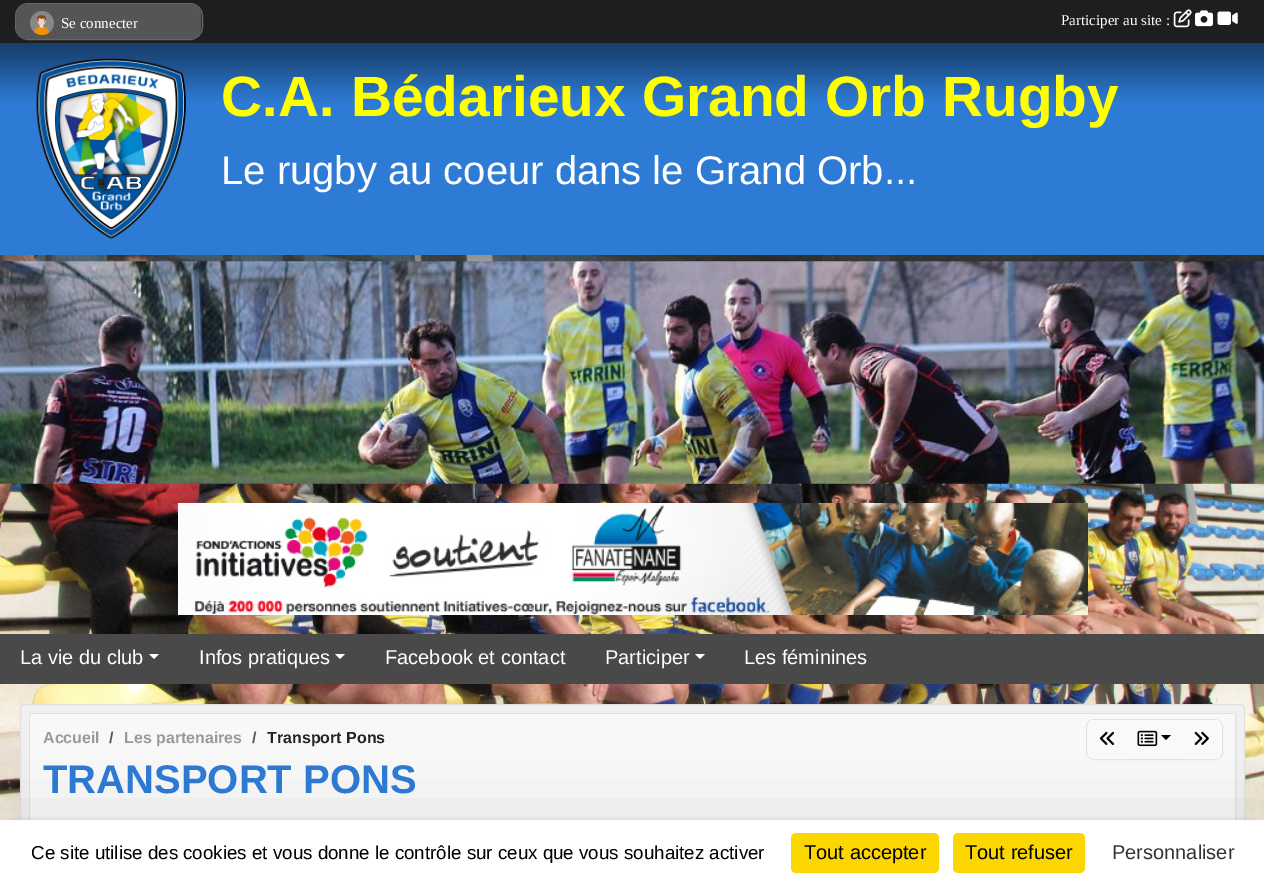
%!PS
<< /PageSize [1264 884] /PageUsesTransparency true >> setpagedevice
/m/moveto load def
/l/rlineto load def
/c/rcurveto load def
/z/closepath load def
/f/fill load def
/s/stroke load def
/q/gsave load def
/Q_/grestore load def
/C { dup -16 bitshift 255 div exch dup -8 bitshift 255 and 255 div exch 255 and 255 div setrgbcolor } def
/F { [ exch dup neg 0 0 3 -1 roll 0 0 ] selectfont } def
/T { moveto show } def
/R { rectfill } def
/A { dup .setfillconstantalpha .setstrokeconstantalpha } def
/Q { 5 dict begin { /r /h /w /y /x } { exch def } forall
  x r add y moveto x w add y 2 copy h add r arct x w add y h add x 1 index r arct
  x y h add x y r arct x y 2 copy exch w add exch r arct closepath end } def
/S { 12 dict begin { /a /b /q /h /w /y /x } { exch def } forall gsave /was 0 def
  9 -2 -9 { dup b mul 4 div /e exch def 1 sub .425 mul 2.718 exch exp 1 add a .99 .min exch div /now exch def
    1 1 now sub 1 was sub div sub A /was now def
    w h .min e 2 mul add 0 gt { x e sub y e sub w e 2 mul add h e 2 mul add
      q e add b .6 mul add w h .min 2 div e add .min 0 .max Q fill } if } for grestore end } def
/I { 5 dict begin { /h /w /y /x /name } { exch def } forall
  gsave x y translate w h scale
  w h 8 [w 0 0 h 0 0] name (r) file false 3 colorimage grestore end } def
0 .pushpdf14devicefilter
0 884 translate 1 -1 scale
4 setmiterlimit
16#FFFFFF C
0 0 1264 884 R
(1.rgb) 0 255 1264 565 I
16#505050 C
0 51 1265 213 0 3 .5 S
16#1E1E1E C
0 0 1264 43 R
16#333333 C
15.5 3.5 187 36 12.5 Q q f Q_
16#666666 C
s
16#555555 C
16 4 185 35 11 Q f
(2.rgb) 30 11 24 24 I
/LiberationSerif-Regular 15 F
16#FFFFFF C
(Se connecter) 61 28 T
(Participer au site :) 1061 25 T
(3.rgb) 1173 9 19 19 I
(4.rgb) 1195 10 18 17 I
(5.rgb) 1217 11 21 14 I
16#2E7BD5 C
0 43 1264 212 R
(6.rgb) 0 43 1264 59 I
(7.rgb) 36 58 150 181 I
/LiberationSans-Bold 56.9 F
16#FFFF00 C
(C.A. Bédarieux Grand Orb Rugby) 221 116 T
/LiberationSans-Regular 40 F
16#FFFFFF C
(Le rugby au coeur dans le Grand Orb...) 221 184 T
(8.rgb) 0 261 1264 223 I
(9.rgb) 178 503 910 112 I
16#494949 C
0 634 1264 50 R
/LiberationSans-Regular 20 F
16#FFFFFF C
(La vie du club) 20 664 T
149 654 m 10 0 l -5 5 l z f
(Infos pratiques) 199 664 T
335 654 m 10 0 l -5 5 l z f
(Facebook et contact) 385 664 T
(Participer) 605 664 T
695 654 m 10 0 l -5 5 l z f
(Les féminines) 744 664 T
16#F0F0F0 C
20.5 704.5 1224 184 3.5 Q q f Q_
16#E1E1E1 C
s
29.5 713.5 1206 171 rectstroke
16#F8F8F8 C
30 714 1205 106 R
/LiberationSans-Bold 16 F
16#999999 C
(Accueil) 43 743 T
16#575A5D C
(/) 109 743 T
16#999999 C
(Les partenaires) 124 743 T
16#575A5D C
(/) 252 743 T
16#212529 C
(Transport Pons) 267 743 T
16#FFFFFF C
1086.5 719.5 136 40 7.5 Q q f Q_
16#E1E1E1 C
s
16#F8F9FA C
1093 720.5 m 34.5 0 l 0 38 l -34.5 0 l -2.5 0 -4.5 -2 -4.5 -4.5 c 0 -29 l 0 -2.5 2 -4.5 4.5 -4.5 c z q f Q_
s
(10.rgb) 1099 731 15 14 I
1128 720 53 39 R
(11.rgb) 1137 730 21 17 I
16#000000 C
1161 735 m 10 0 l -5 5 l z f
16#F8F9FA C
1181.5 720.5 m 34.5 0 l 2.5 0 4.5 2 4.5 4.5 c 0 29 l 0 2.5 -2 4.5 -4.5 4.5 c -34.5 0 l z q f Q_
s
(12.rgb) 1194 731 15 14 I
/LiberationSans-Bold 40 F
16#2E7BD5 C
(TRANSPORT PONS) 43 793 T
16#000000 C
0 845 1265 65 0 37.5 .25 S
16#FFFFFF C
0 820 1264 64 R
/LiberationSans-Regular 18.75 F
16#000000 C
(Ce site utilise des cookies et vous donne le contrôle sur ceux que vous souhaitez activer) 31 859 T
16#FBD600 C
791 833 148 40 5 Q f
/LiberationSans-Regular 20 F
16#000000 C
(Tout accepter) 804 859 T
16#FBD600 C
953 833 132 40 5 Q f
16#000000 C
(Tout refuser) 965 859 T
16#333333 C
(Personnaliser) 1112 859 T
.poppdf14devicefilter showpage
